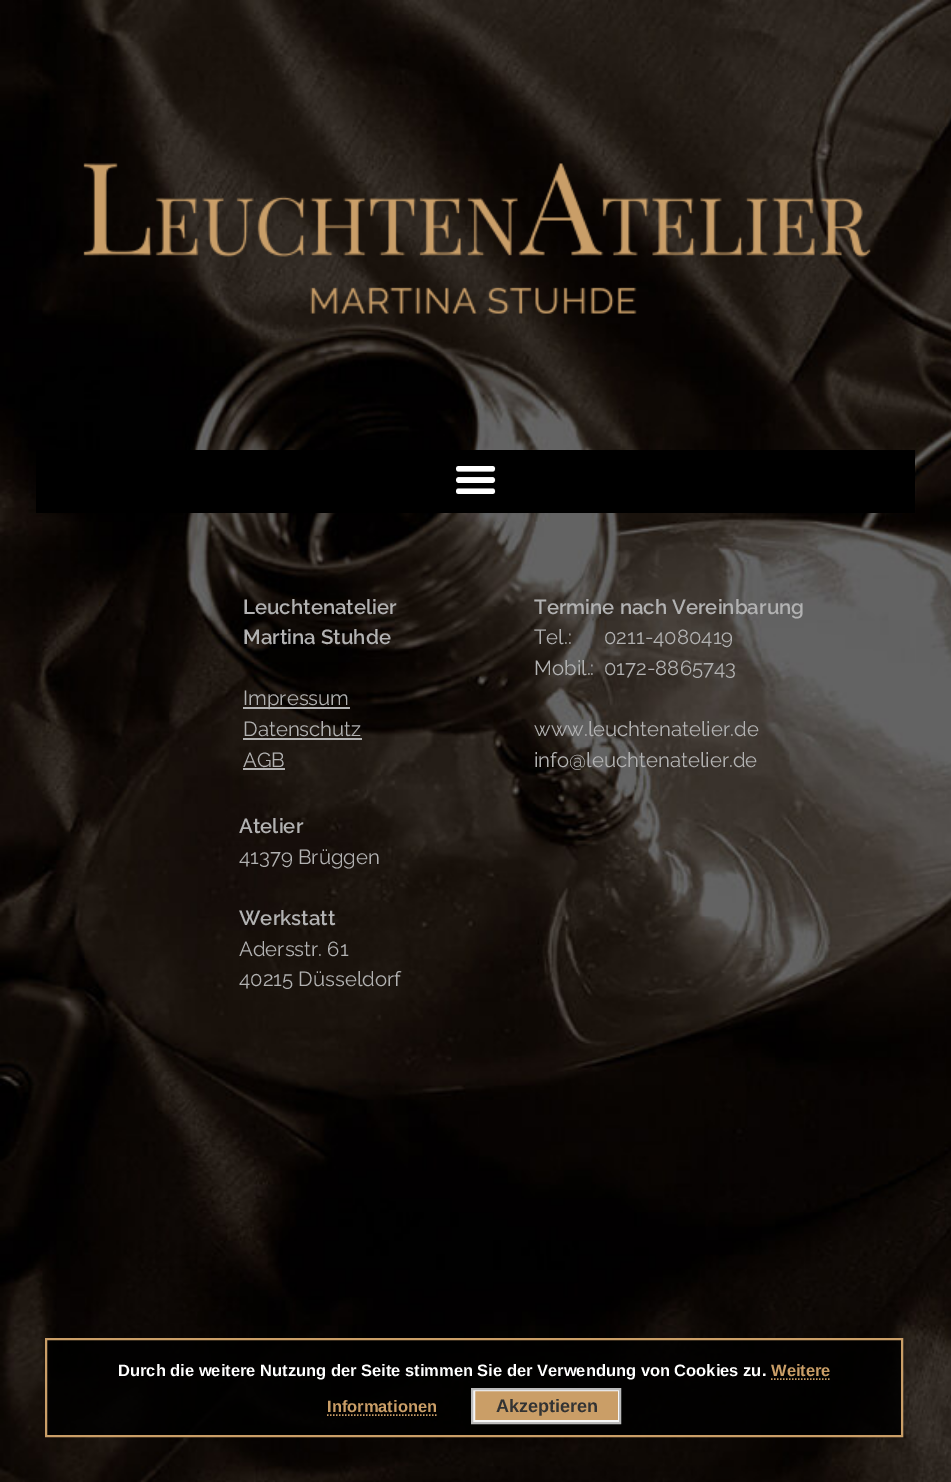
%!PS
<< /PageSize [951 1482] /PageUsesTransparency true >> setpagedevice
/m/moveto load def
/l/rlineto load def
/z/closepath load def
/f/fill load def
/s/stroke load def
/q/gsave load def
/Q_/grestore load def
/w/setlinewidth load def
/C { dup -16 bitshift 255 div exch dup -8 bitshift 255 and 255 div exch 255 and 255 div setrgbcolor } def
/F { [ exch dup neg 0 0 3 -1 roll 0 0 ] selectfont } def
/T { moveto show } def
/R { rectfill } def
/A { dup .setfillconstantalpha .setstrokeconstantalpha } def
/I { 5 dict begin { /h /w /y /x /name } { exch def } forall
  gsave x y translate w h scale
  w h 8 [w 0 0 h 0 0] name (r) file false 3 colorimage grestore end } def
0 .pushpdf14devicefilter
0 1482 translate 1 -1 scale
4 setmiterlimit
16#FFFFFF C
0 0 951 1482 R
(1.rgb) 0 0 951 1482 I
(2.rgb) 83 163 788 151 I
16#000000 C
36 450 879 63 R
(3.rgb) 456 466 40 28 I
/Raleway-SemiBold 20.4 F
16#B2B2B2 C
(Leuchtenatelier) 243 614 T
(Martina Stuhde) 243 644 T
243 707 107 2 R
/Raleway-Regular 20.4 F
(Impressum) 243 705 T
(Datenschutz) 243 736 T
243 738 119 2 R
(AGB) 243 767 T
243 768 42 2 R
/Raleway-SemiBold 20.4 F
(Termine nach Vereinbarung) 534 614 T
/Raleway-Regular 20.4 F
(Tel.:) 534 644 T
(0211-4080419) 604 644 T
(Mobil.:) 534 675 T
(0172-8865743) 604 675 T
(www.leuchtenatelier.de) 534 736 T
(info@leuchtenatelier.de) 534 767 T
/Raleway-SemiBold 20.4 F
(Atelier) 239 833 T
/Raleway-Regular 20.4 F
(41379 Brüggen) 239 864 T
/Raleway-SemiBold 20.4 F
(Werkstatt) 239 925 T
/Raleway-Regular 20.4 F
(Adersstr. 61) 239 956 T
(40215 Düsseldorf) 239 986 T
0.85 A
16#000000 C
46 1339 m 856 0 l 0 97 l -856 0 l z f
1 A
16#CA9E67 C
2 w
46 1339 m 856 0 l 0 97 l -856 0 l z s
/LiberationSans-Bold 16.5 F
16#FFFFFF C
(Durch die weitere Nutzung der Seite stimmen Sie der Verwendung von Cookies zu.) 118 1376 T
16#CA9E67 C
(Weitere) 771 1376 T
1.5 w
[1.5 1.5] 0 setdash
771 1379 m 60 0 l s
(Informationen) 327 1412 T
327 1415 m 109.5 0 l s
474 1390 m 145 0 l 0 31 l -145 0 l z q f Q_
16#F6F6F6 C
2 w
[] 0 setdash
s
16#BBBBBB C
472 1389 148 34 rectstroke
/LiberationSans-Bold 18 F
16#333333 C
(Akzeptieren) 496 1412 T
.poppdf14devicefilter showpage
